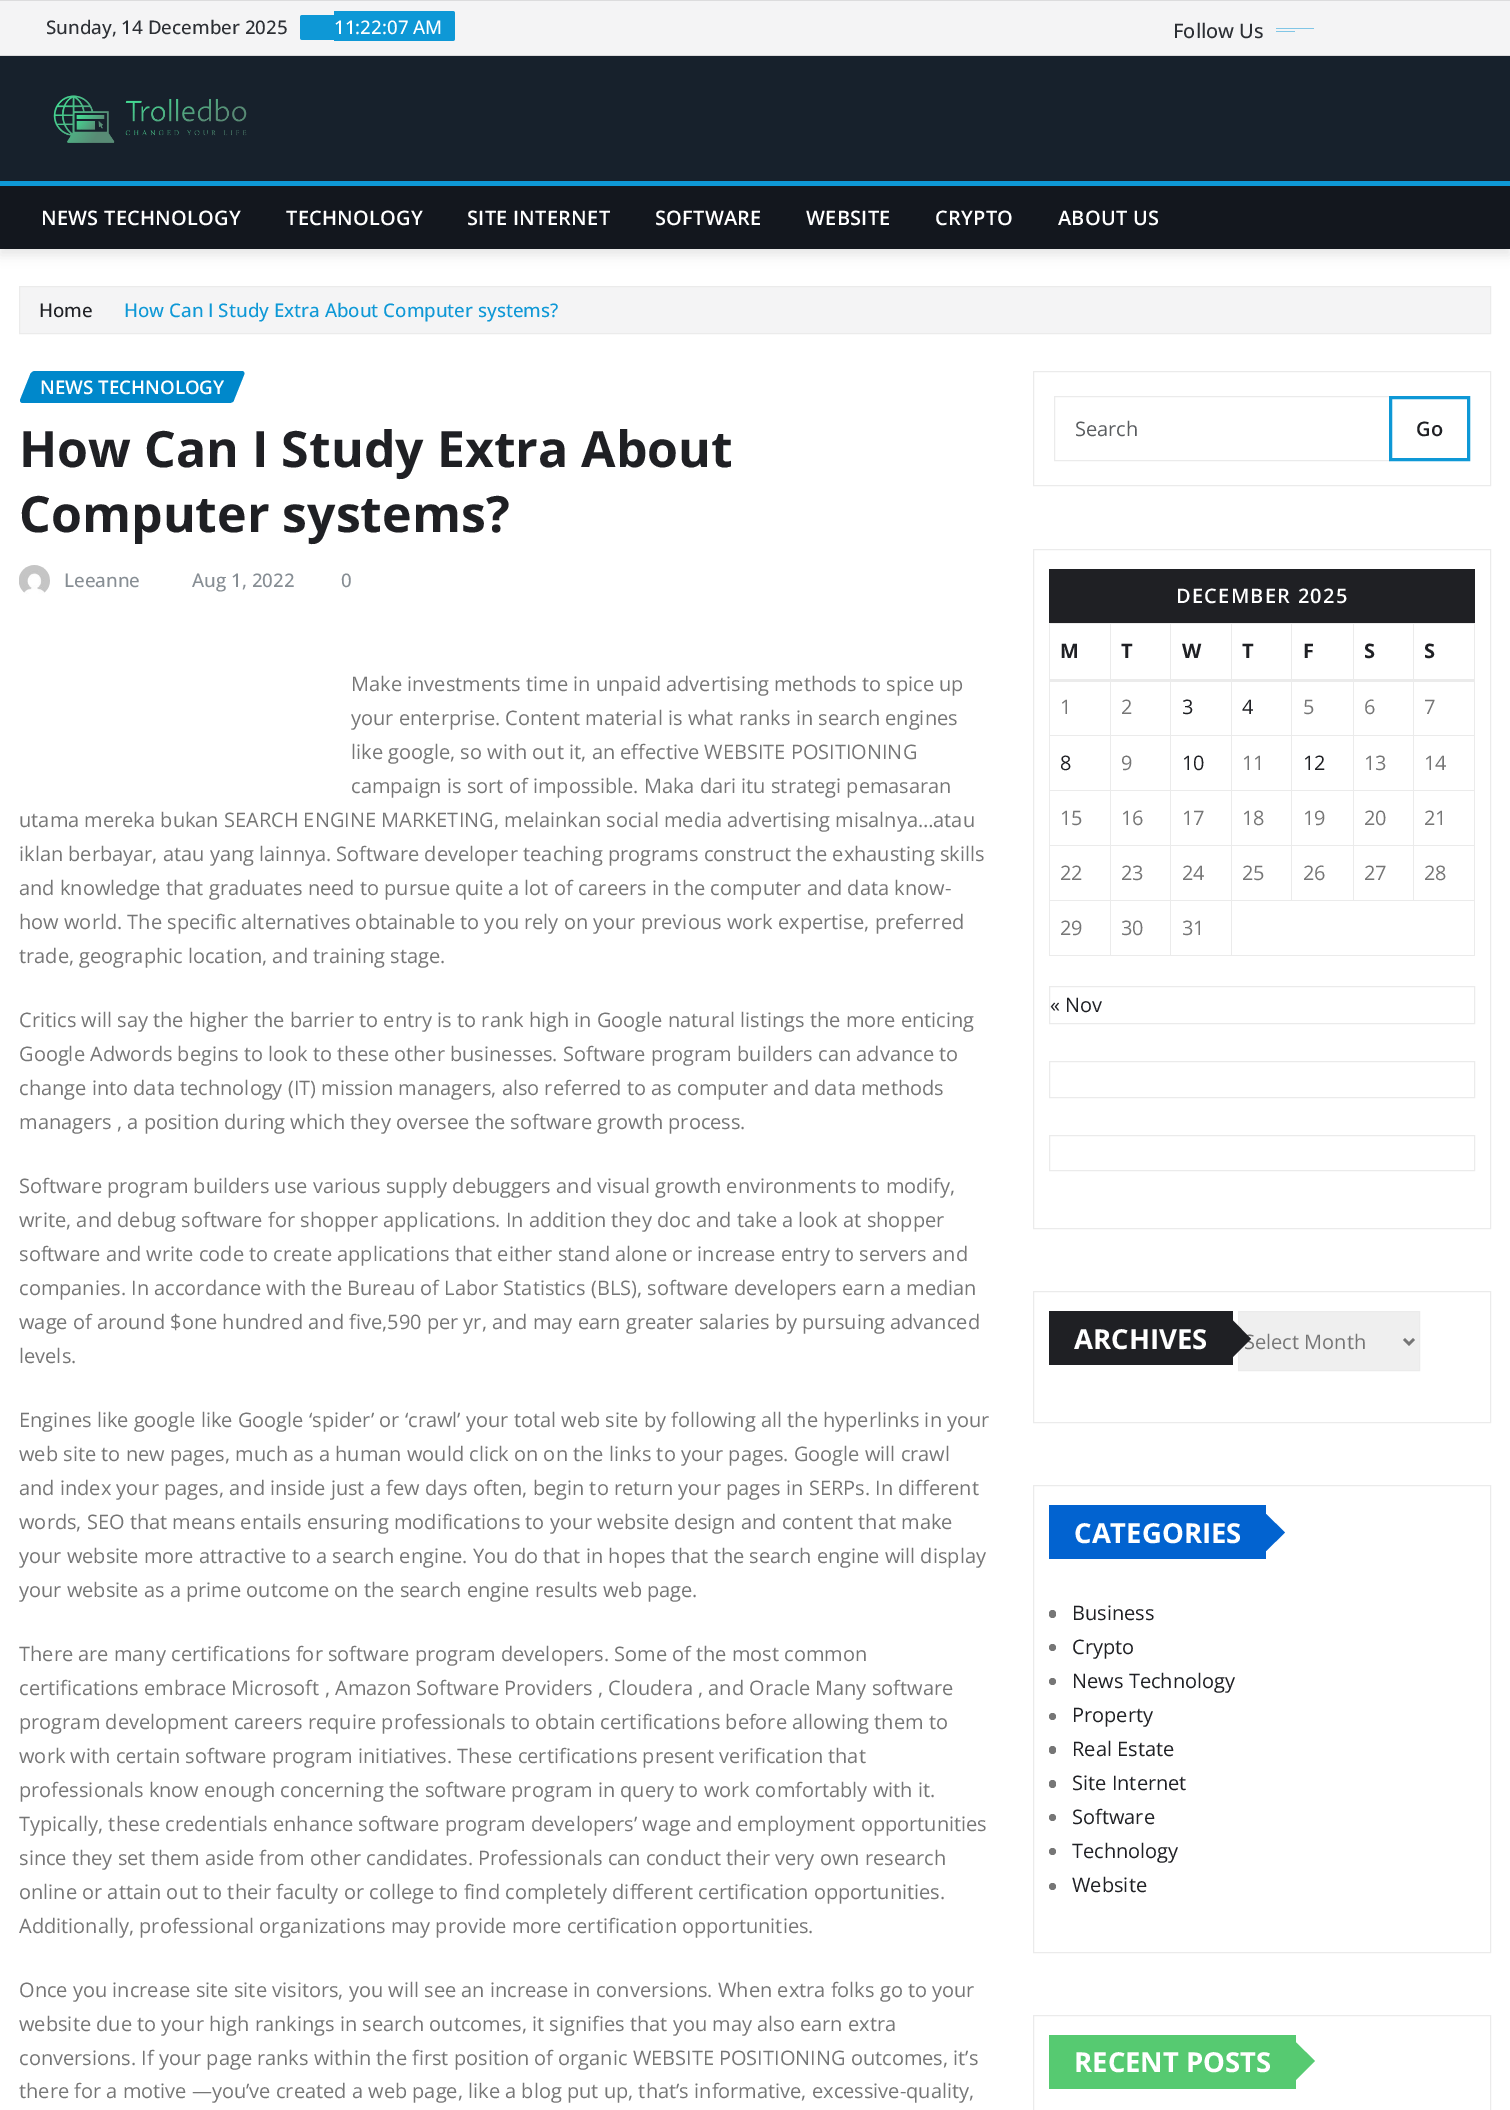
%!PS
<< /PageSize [1510 2110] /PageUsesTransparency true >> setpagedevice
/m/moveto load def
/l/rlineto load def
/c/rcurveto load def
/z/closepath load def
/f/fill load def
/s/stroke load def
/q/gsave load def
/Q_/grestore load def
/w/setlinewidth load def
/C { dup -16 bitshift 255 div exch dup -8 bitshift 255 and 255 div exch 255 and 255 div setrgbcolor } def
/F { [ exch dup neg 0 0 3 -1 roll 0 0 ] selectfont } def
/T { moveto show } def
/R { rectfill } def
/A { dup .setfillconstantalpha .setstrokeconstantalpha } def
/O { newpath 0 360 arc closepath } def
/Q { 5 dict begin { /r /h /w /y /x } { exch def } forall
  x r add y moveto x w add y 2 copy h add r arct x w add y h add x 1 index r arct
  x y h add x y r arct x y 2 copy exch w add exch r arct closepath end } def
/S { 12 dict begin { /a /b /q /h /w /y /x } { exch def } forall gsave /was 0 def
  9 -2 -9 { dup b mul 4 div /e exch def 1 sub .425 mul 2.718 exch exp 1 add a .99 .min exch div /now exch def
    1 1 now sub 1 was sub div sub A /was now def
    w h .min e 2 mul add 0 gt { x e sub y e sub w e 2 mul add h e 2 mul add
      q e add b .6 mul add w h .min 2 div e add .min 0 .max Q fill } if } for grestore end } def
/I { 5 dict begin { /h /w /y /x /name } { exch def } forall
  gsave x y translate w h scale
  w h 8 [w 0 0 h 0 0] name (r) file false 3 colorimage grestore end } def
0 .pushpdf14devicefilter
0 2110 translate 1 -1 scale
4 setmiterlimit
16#FFFFFF C
0 0 1510 2110 R
16#F4F4F5 C
0 1 1510 54 R
16#DCDCDD C
0 0 1510 1 R
0 55 1510 1 R
/OpenSans-Medium 18.75 F
16#2C2F34 C
(Sunday, 14 December 2025) 46 34 T
16#0E98D6 C
334 11 m 118.5 0 l 1.5 0 2.5 1 2.5 2.5 c 0 25 l 0 1.5 -1 2.5 -2.5 2.5 c -118.5 0 l z f
16#FFFFFF C
(11:22:07 AM) 334 34 T
16#0E98D6 C
302.5 15 m 31.5 0 l 0 25 l -31.5 0 l -1.5 0 -2.5 -1 -2.5 -2.5 c 0 -20 l 0 -1.5 1 -2.5 2.5 -2.5 c z f
/OpenSans-Medium 20 F
16#2C2F34 C
(Follow Us) 1173 38 T
16#81C6E6 C
1276 28 38 1 R
1276 31 19 1 R
16#17212C C
0 56 1510 125 R
(1.rgb) 53 95 194 48 I
16#000000 C
0 188 1510 67 0 6 .1 S
16#13171E C
0 186 1510 63 R
16#0E98D6 C
0 181 1510 5 R
/OpenSans-SemiBold 20 F
16#FFFFFF C
41 225 m .25 0 (NEWS TECHNOLOGY) ashow
286 225 m .25 0 (TECHNOLOGY) ashow
467 225 m .25 0 (SITE INTERNET) ashow
655 225 m .25 0 (SOFTWARE) ashow
806 225 m .25 0 (WEBSITE) ashow
935 225 m .25 0 (CRYPTO) ashow
1058 225 m .25 0 (ABOUT US) ashow
16#F4F4F5 C
19.5 286.5 m 1471 0 l 0 47 l -1471 0 l z q f Q_
16#EBEBEB C
s
/OpenSans-Medium 18.75 F
16#1F2024 C
(Home) 39 317 T
16#0E98D6 C
(How Can I Study Extra About Computer systems?) 124 317 T
16#0088CB C
35 371 m 207 0 l 2 0 3 2 2 4 c -10 25 l 0 2 -3 3 -5 3 c -206 0 l -2 0 -3 -1 -3 -3 c 10 -25 l 0 -2 3 -4 5 -4 c z f
/OpenSans-SemiBold 18.75 F
16#FFFFFF C
(NEWS TECHNOLOGY) 40 394 T
/OpenSans-Bold 50 F
16#1F2024 C
(How Can I Study Extra About) 19 467 T
(Computer systems?) 19 532 T
(2.rgb) 19 565 31 29 I
/OpenSans-Medium 18.75 F
16#878E94 C
(Leeanne) 64 587 T
(Aug 1, 2022) 192 587 T
(0) 341 587 T
/OpenSans-Regular 20 F
16#767676 C
(Make investments time in unpaid advertising methods to spice up) 351 691 T
(your enterprise. Content material is what ranks in search engines) 351 725 T
(like google, so with out it, an effective WEBSITE POSITIONING) 351 759 T
(campaign is sort of impossible. Maka dari itu strategi pemasaran) 351 793 T
(utama mereka bukan SEARCH ENGINE MARKETING, melainkan social media advertising misalnya…atau) 19 827 T
(iklan berbayar, atau yang lainnya. Software developer teaching programs construct the exhausting skills) 19 861 T
(and knowledge that graduates need to pursue quite a lot of careers in the computer and data know-) 19 895 T
(how world. The specific alternatives obtainable to you rely on your previous work expertise, preferred) 19 929 T
(trade, geographic location, and training stage.) 19 963 T
(Critics will say the higher the barrier to entry is to rank high in Google natural listings the more enticing) 19 1027 T
(Google Adwords begins to look to these other businesses. Software program builders can advance to) 19 1061 T
(change into data technology \(IT\) mission managers, also referred to as computer and data methods) 19 1095 T
(managers , a position during which they oversee the software growth process.) 19 1129 T
(Software program builders use various supply debuggers and visual growth environments to modify,) 19 1193 T
(write, and debug software for shopper applications. In addition they doc and take a look at shopper) 19 1227 T
(software and write code to create applications that either stand alone or increase entry to servers and) 19 1261 T
(companies. In accordance with the Bureau of Labor Statistics \(BLS\), software developers earn a median) 19 1295 T
(wage of around $one hundred and five,590 per yr, and may earn greater salaries by pursuing advanced) 19 1329 T
(levels.) 19 1363 T
(Engines like google like Google ‘spider’ or ‘crawl’ your total web site by following all the hyperlinks in your) 19 1427 T
(web site to new pages, much as a human would click on on the links to your pages. Google will crawl) 19 1461 T
(and index your pages, and inside just a few days often, begin to return your pages in SERPs. In different) 19 1495 T
(words, SEO that means entails ensuring modifications to your website design and content that make) 19 1529 T
(your website more attractive to a search engine. You do that in hopes that the search engine will display) 19 1563 T
(your website as a prime outcome on the search engine results web page.) 19 1597 T
(There are many certifications for software program developers. Some of the most common) 19 1661 T
(certifications embrace Microsoft , Amazon Software Providers , Cloudera , and Oracle Many software) 19 1695 T
(program development careers require professionals to obtain certifications before allowing them to) 19 1729 T
(work with certain software program initiatives. These certifications present verification that) 19 1763 T
(professionals know enough concerning the software program in query to work comfortably with it.) 19 1797 T
(Typically, these credentials enhance software program developers’ wage and employment opportunities) 19 1831 T
(since they set them aside from other candidates. Professionals can conduct their very own research) 19 1865 T
(online or attain out to their faculty or college to find completely different certification opportunities.) 19 1899 T
(Additionally, professional organizations may provide more certification opportunities.) 19 1933 T
(Once you increase site site visitors, you will see an increase in conversions. When extra folks go to your) 19 1997 T
(website due to your high rankings in search outcomes, it signifies that you may also earn extra) 19 2031 T
(conversions. If your page ranks within the first position of organic WEBSITE POSITIONING outcomes, it’s) 19 2065 T
(there for a motive —you’ve created a web page, like a blog put up, that’s informative, excessive-quality,) 19 2098 T
16#EBEBEB C
1033.5 371.5 457 114 rectstroke
1054.5 396.5 335 64 rectstroke
16#595C5F C
(Search) 1075 436 T
16#0E98D6 C
3 w
1390.5 397.5 78 62 rectstroke
/OpenSans-SemiBold 20 F
16#1F2024 C
(Go) 1416 436 T
16#EBEBEB C
1 w
1033.5 549.5 457 679 rectstroke
16#1F2024 C
1049 569 426 54 R
16#FFFFFF C
1176 603 m 1.25 0 (DECEMBER 2025) ashow
16#EBEBEB C
1413 623 62 1 R
1413 735 62 1 R
1413 790 62 1 R
1413 845 62 1 R
1231 900 244 1 R
1413 845 1 56 R
1353 845 61 1 R
1413 790 1 56 R
1353 790 61 1 R
1413 735 1 56 R
1353 735 61 1 R
1413 679 1 57 R
1413 623 1 57 R
1353 623 61 1 R
1353 845 1 56 R
1291 845 63 1 R
1353 790 1 56 R
1291 790 63 1 R
1353 735 1 56 R
1291 735 63 1 R
1353 679 1 57 R
1353 623 1 57 R
1291 623 63 1 R
1291 845 1 56 R
1231 845 62 1 R
1291 790 1 56 R
1231 790 62 1 R
1291 735 1 56 R
1231 735 62 1 R
1291 679 1 57 R
1291 623 1 57 R
1231 623 62 1 R
1474 900 1 56 R
1231 955 244 1 R
1231 900 1 56 R
1170 900 63 1 R
1231 845 1 56 R
1170 845 63 1 R
1231 790 1 56 R
1170 790 63 1 R
1231 735 1 56 R
1170 735 63 1 R
1231 679 1 57 R
1231 623 1 57 R
1170 623 63 1 R
1170 955 63 1 R
1170 900 1 56 R
1110 900 61 1 R
1170 845 1 56 R
1110 845 61 1 R
1170 790 1 56 R
1110 790 61 1 R
1170 735 1 56 R
1110 735 61 1 R
1170 679 1 57 R
1170 623 1 57 R
1110 623 61 1 R
1110 955 61 1 R
1110 900 1 56 R
1049 900 62 1 R
1110 845 1 56 R
1049 845 62 1 R
1110 790 1 56 R
1049 790 62 1 R
1110 735 1 56 R
1049 735 62 1 R
1110 679 1 57 R
1110 623 1 57 R
1049 623 62 1 R
1049 955 62 1 R
1049 900 1 56 R
1049 845 1 56 R
1049 790 1 56 R
1049 679 1 112 R
1049 623 1 57 R
/OpenSans-Bold 20 F
16#1F2024 C
(M) 1060 658 T
(T) 1121 658 T
(W) 1182 658 T
(T) 1242 658 T
(F) 1303 658 T
(S) 1364 658 T
16#EBEBEB C
1474 845 1 56 R
1474 790 1 56 R
1474 679 1 112 R
1474 623 1 57 R
1049 679 426 3 R
16#1F2024 C
(S) 1424 658 T
/OpenSans-Regular 20 F
16#767676 C
(1) 1060 714 T
(2) 1121 714 T
16#1F2024 C
(3) 1182 714 T
(4) 1242 714 T
16#767676 C
(5) 1303 714 T
(6) 1364 714 T
(7) 1424 714 T
16#1F2024 C
(8) 1060 770 T
16#767676 C
(9) 1121 770 T
16#1F2024 C
(10) 1182 770 T
16#767676 C
(11) 1242 770 T
16#1F2024 C
(12) 1303 770 T
16#767676 C
(13) 1364 770 T
(14) 1424 770 T
(15) 1060 825 T
(16) 1121 825 T
(17) 1182 825 T
(18) 1242 825 T
(19) 1303 825 T
(20) 1364 825 T
(21) 1424 825 T
(22) 1060 880 T
(23) 1121 880 T
(24) 1182 880 T
(25) 1242 880 T
(26) 1303 880 T
(27) 1364 880 T
(28) 1424 880 T
(29) 1060 935 T
(30) 1121 935 T
(31) 1182 935 T
16#EBEBEB C
1049.5 986.5 425 37 rectstroke
16#1F2024 C
(« Nov) 1050 1012 T
16#EBEBEB C
1049.5 1061.5 425 36 rectstroke
1049.5 1135.5 425 35 rectstroke
1033.5 1291.5 457 131 rectstroke
16#1F2024 C
1049 1311 184 54 R
/OpenSans-Bold 27.5 F
16#FFFFFF C
(ARCHIVES) 1074 1349 T
16#EFEFEF C
1238.5 1311.5 m 181 0 l 0 59 l -181 0 l z q f Q_
16#EBEBEB C
s
/OpenSans-Regular 20 F
16#767676 C
(Select Month) 1244 1349 T
16#1F2024 C
1232.5 1357.5 m 0 -37.5 l 18.5 19 l z f
16#767676 C
2.5 w
1404 1339 m 5 5 l 5 -5 l s
16#EBEBEB C
1 w
1033.5 1485.5 457 467 rectstroke
16#0263D0 C
1049 1505 217 54 R
/OpenSans-Bold 27.5 F
16#FFFFFF C
(CATEGORIES) 1074 1543 T
16#0263D0 C
1266 1551 m 0 -37 l 19 18.5 l z f
16#767676 C
1049 1610 7 8 3.5 Q f
/OpenSans-Regular 20 F
16#1F2024 C
(Business) 1072 1620 T
16#767676 C
1052.5 1647.5 3.5 O f
16#1F2024 C
(Crypto) 1072 1654 T
16#767676 C
1052.5 1681.5 3.5 O f
16#1F2024 C
(News Technology) 1072 1688 T
16#767676 C
1052.5 1716.5 3.5 O f
16#1F2024 C
(Property) 1072 1722 T
16#767676 C
1049 1746 7 8 3.5 Q f
16#1F2024 C
(Real Estate) 1072 1756 T
16#767676 C
1049 1780 7 8 3.5 Q f
16#1F2024 C
(Site Internet) 1072 1790 T
16#767676 C
1052.5 1817.5 3.5 O f
16#1F2024 C
(Software) 1072 1824 T
16#767676 C
1052.5 1851.5 3.5 O f
16#1F2024 C
(Technology) 1072 1858 T
16#767676 C
1052.5 1886.5 3.5 O f
16#1F2024 C
(Website) 1072 1892 T
16#EBEBEB C
1033.5 2015.5 457 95 rectstroke
16#56CA71 C
1049 2035 247 54 R
/OpenSans-Bold 27.5 F
16#FFFFFF C
(RECENT POSTS) 1074 2072 T
16#56CA71 C
1296 2080 m 0 -37.5 l 19 18.5 l z f
.poppdf14devicefilter showpage
